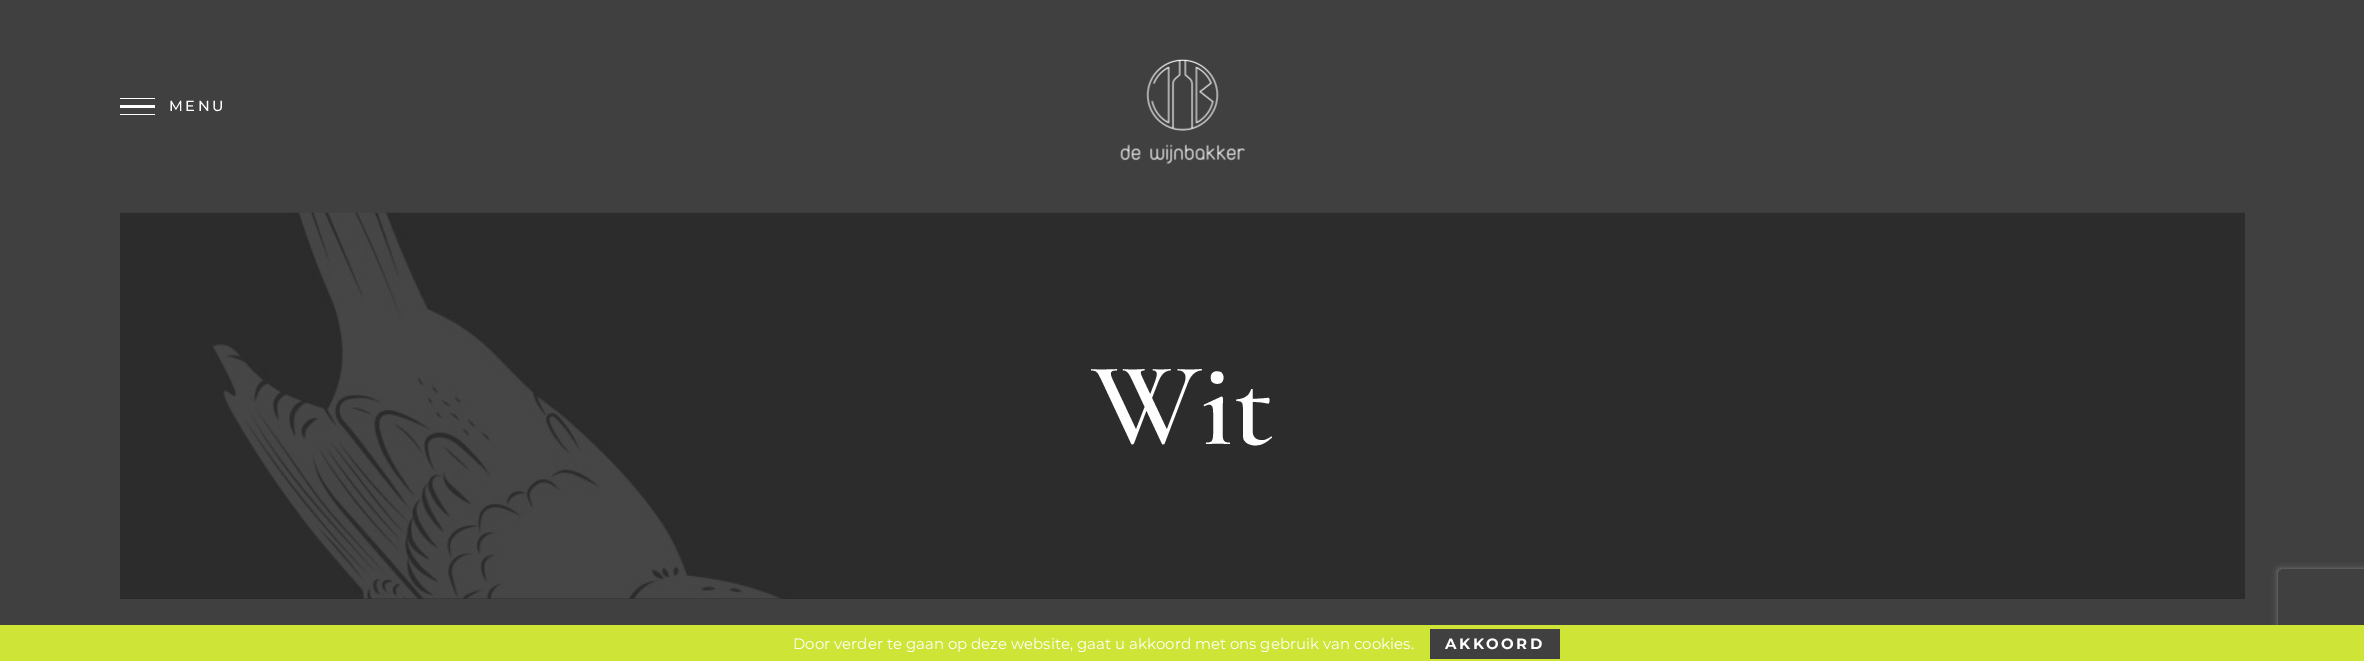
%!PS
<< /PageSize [2364 661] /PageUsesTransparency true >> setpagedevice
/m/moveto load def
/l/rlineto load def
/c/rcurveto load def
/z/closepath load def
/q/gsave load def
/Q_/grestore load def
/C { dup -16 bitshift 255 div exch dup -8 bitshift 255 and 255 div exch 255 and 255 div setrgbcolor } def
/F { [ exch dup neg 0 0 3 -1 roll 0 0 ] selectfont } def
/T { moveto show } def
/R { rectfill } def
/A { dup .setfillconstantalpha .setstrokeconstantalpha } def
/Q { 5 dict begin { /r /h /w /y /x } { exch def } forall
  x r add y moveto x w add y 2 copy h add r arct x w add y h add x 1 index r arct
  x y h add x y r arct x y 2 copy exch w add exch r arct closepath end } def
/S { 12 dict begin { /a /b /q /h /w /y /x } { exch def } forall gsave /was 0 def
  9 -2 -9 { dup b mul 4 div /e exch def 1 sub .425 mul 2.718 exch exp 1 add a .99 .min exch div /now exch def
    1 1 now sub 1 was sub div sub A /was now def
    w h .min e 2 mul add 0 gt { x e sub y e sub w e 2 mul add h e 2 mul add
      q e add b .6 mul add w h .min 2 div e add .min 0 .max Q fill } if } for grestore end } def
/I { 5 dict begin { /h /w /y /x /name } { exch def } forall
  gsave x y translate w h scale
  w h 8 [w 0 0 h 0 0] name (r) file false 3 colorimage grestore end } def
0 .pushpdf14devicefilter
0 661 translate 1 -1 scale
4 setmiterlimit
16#404040 C
0 0 2364 661 R
16#FFFFFF C
120 98 35 1 R
120 105 35 3 R
120 114 35 1 R
/Montserrat-Medium 14.5 F
169 111 m 2.5 0 (MENU) ashow
(1.rgb) 1120 59 125 105 I
16#2C2C2C C
120 598 2125 1 R
(2.rgb) 120 212 2125 387 I
/CormorantGaramond-SemiBold 120 F
16#FFFFFF C
(Wit) 1091 444 T
q
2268 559 m 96 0 l 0 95 l -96 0 l z 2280.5 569 m 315 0 l 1.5 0 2.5 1 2.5 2.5 c 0 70 l 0 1.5 -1 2.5 -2.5 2.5 c -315 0 l -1.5 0 -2.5 -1 -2.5 -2.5 c 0 -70 l 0 -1.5 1 -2.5 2.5 -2.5 c z eoclip newpath
16#808080 C
2278 569 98 75 2.5 3 1 S
Q_
16#CEE538 C
0 625 2364 36 R
/Montserrat-Regular 15 F
16#FFFFFF C
(Door verder te gaan op deze website, gaat u akkoord met ons gebruik van cookies.) 793 649 T
16#404040 C
1430 629 130 30 R
/Montserrat-Bold 15 F
16#FFFFFF C
1445 649 m 2.5 0 (AKKOORD) ashow
.poppdf14devicefilter showpage
